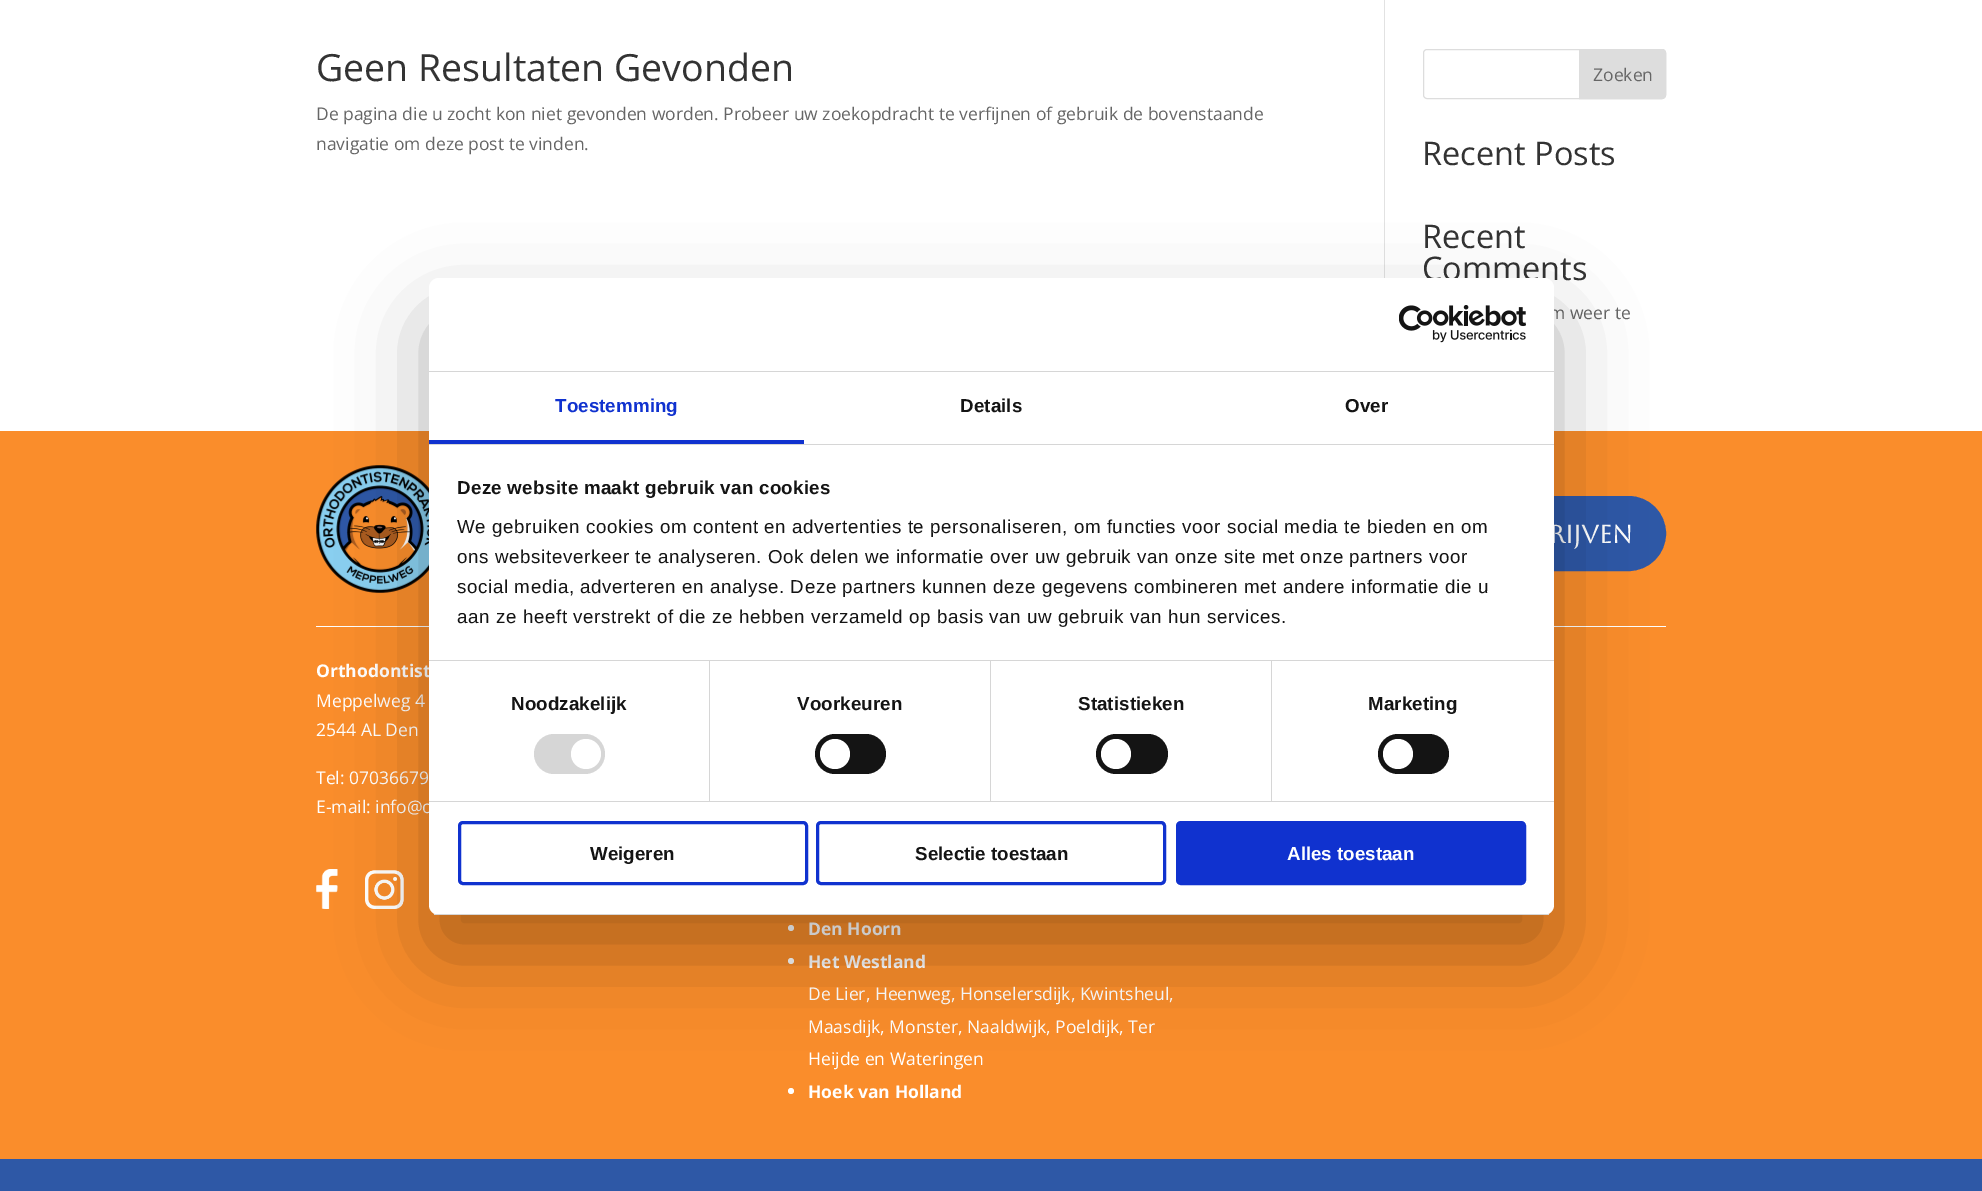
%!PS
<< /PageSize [1982 1191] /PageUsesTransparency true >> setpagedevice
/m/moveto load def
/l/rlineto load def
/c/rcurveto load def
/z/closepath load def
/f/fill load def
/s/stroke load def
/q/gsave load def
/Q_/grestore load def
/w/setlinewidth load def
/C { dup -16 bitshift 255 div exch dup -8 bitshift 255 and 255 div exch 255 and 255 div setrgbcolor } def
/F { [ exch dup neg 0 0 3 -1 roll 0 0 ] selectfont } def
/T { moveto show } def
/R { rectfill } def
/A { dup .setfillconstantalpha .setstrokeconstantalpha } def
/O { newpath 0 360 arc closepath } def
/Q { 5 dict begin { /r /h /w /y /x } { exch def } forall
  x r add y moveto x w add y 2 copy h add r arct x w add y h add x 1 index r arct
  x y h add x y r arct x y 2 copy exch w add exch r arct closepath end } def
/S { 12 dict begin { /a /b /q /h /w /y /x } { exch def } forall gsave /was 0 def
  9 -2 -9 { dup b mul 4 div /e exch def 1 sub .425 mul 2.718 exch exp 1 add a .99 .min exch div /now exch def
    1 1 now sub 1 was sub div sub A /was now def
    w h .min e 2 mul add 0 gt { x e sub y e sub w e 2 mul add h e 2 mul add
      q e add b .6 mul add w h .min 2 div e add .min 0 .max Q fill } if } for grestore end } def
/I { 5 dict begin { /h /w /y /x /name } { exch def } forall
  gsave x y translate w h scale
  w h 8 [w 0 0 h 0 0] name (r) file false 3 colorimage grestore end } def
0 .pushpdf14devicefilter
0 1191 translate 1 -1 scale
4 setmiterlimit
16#FFFFFF C
0 0 1982 1191 R
16#E2E2E2 C
1384 0 1 278 R
/OpenSans-Regular 37.5 F
16#333333 C
(Geen Resultaten Gevonden) 316 81 T
/OpenSans-Regular 17.5 F
16#666666 C
(De pagina die u zocht kon niet gevonden worden. Probeer uw zoekopdracht te verfijnen of gebruik de bovenstaande) 316 120 T
(navigatie om deze post te vinden.) 316 150 T
16#DDDDDD C
1423.5 49.5 242 49 3.5 Q s
1579.5 49.5 m 82.5 0 l 2 0 3.5 1.5 3.5 3.5 c 0 42 l 0 2 -1.5 3.5 -3.5 3.5 c -82.5 0 l z q f Q_
s
16#666666 C
(Zoeken) 1593 81 T
/OpenSans-Regular 32.5 F
16#333333 C
(Recent Posts) 1422 165 T
(Recent) 1422 248 T
(Comments) 1422 280 T
/OpenSans-Regular 17.5 F
16#666666 C
(m weer te) 1549 319 T
16#FA8D2B C
0 431 1982 728 R
(1.rgb) 316 465 113 128 I
16#2E58A6 C
1438.5 500.5 223 66 33 Q q f Q_
9 w
s
/Aboreto-Bold 25 F
16#FFFFFF C
(rijven) 1549 543 T
316 626 1350 1 R
/OpenSans-Bold 17.5 F
(Orthodontist) 316 677 T
/OpenSans-Regular 17.5 F
(Meppelweg 4) 316 707 T
(2544 AL Den) 316 736 T
(Tel: 07036679) 316 784 T
(E-mail: info@o) 316 813 T
(2.rgb) 316 869 22 40 I
(3.rgb) 365 870 39 39 I
791 928 3 O f
/OpenSans-Bold 17.5 F
(Den Hoorn) 808 935 T
791 961 3 O f
(Het Westland) 808 968 T
/OpenSans-Regular 17.5 F
(De Lier, Heenweg, Honselersdijk, Kwintsheul,) 808 1000 T
(Maasdijk, Monster, Naaldwijk, Poeldijk, Ter) 808 1033 T
(Heijde en Wateringen) 808 1065 T
791 1091 3 O f
/OpenSans-Bold 17.5 F
(Hoek van Holland) 808 1098 T
16#2E58A6 C
0 1159 1982 32 R
16#000000 C
429 318 1125 637 10 42.5 .3 S
16#FFFFFF C
429 278 1125 637 10 Q f
16#D6D6D6 C
429 371 1125 1 R
(4.rgb) 1399 305 127 38 I
429 444 1125 1 R
16#1032CF C
429 440 375 4 R
/LiberationSans-Bold 18.75 F
555 412 m .1 0 (Toestemming) ashow
16#141414 C
960 412 m .1 0 (Details) ashow
1345 412 m .1 0 (Over) ashow
16#D6D6D6 C
429 660 1125 1 R
16#141414 C
457 494 m .3 0 (Deze website maakt gebruik van cookies) ashow
/LiberationSans-Regular 18.75 F
457 533 m .62 0 (We gebruiken cookies om content en advertenties te personaliseren, om functies voor social media te bieden en om) ashow
457 563 m .62 0 (ons websiteverkeer te analyseren. Ook delen we informatie over uw gebruik van onze site met onze partners voor) ashow
457 593 m .62 0 (social media, adverteren en analyse. Deze partners kunnen deze gegevens combineren met andere informatie die u) ashow
457 623 m .62 0 (aan ze heeft verstrekt of die ze hebben verzameld op basis van uw gebruik van hun services.) ashow
16#D6D6D6 C
429 801 1125 1 R
709 661 1 140 R
/LiberationSans-Bold 18.75 F
16#141414 C
511 710 m .1 0 (Noodzakelijk) ashow
16#D6D6D6 C
534 734 71 40 20 Q f
16#FFFFFF C
586 754 15 O f
16#D6D6D6 C
990 661 1 140 R
16#141414 C
797 710 m .1 0 (Voorkeuren) ashow
815 734 71 40 20 Q f
16#FFFFFF C
835 754 15 O f
16#D6D6D6 C
1271 661 1 140 R
16#141414 C
1078 710 m .1 0 (Statistieken) ashow
1096 734 72 40 20 Q f
16#FFFFFF C
1116 754 15 O f
16#141414 C
1368 710 m .1 0 (Marketing) ashow
1378 734 71 40 20 Q f
16#FFFFFF C
1398 754 15 O f
q
429 278 1125 637 10 Q clip newpath
16#D6D6D6 C
429 914 1125 1 R
Q_
16#1032CF C
3 w
459.5 822.5 347 61 3.5 Q s
16#141414 C
(Weigeren) 590 860 T
16#1032CF C
817.5 822.5 347 61 3.5 Q s
16#141414 C
(Selectie toestaan) 915 860 T
16#1032CF C
1177.5 822.5 347 61 3.5 Q q f Q_
s
16#FFFFFF C
(Alles toestaan) 1287 860 T
.poppdf14devicefilter showpage
